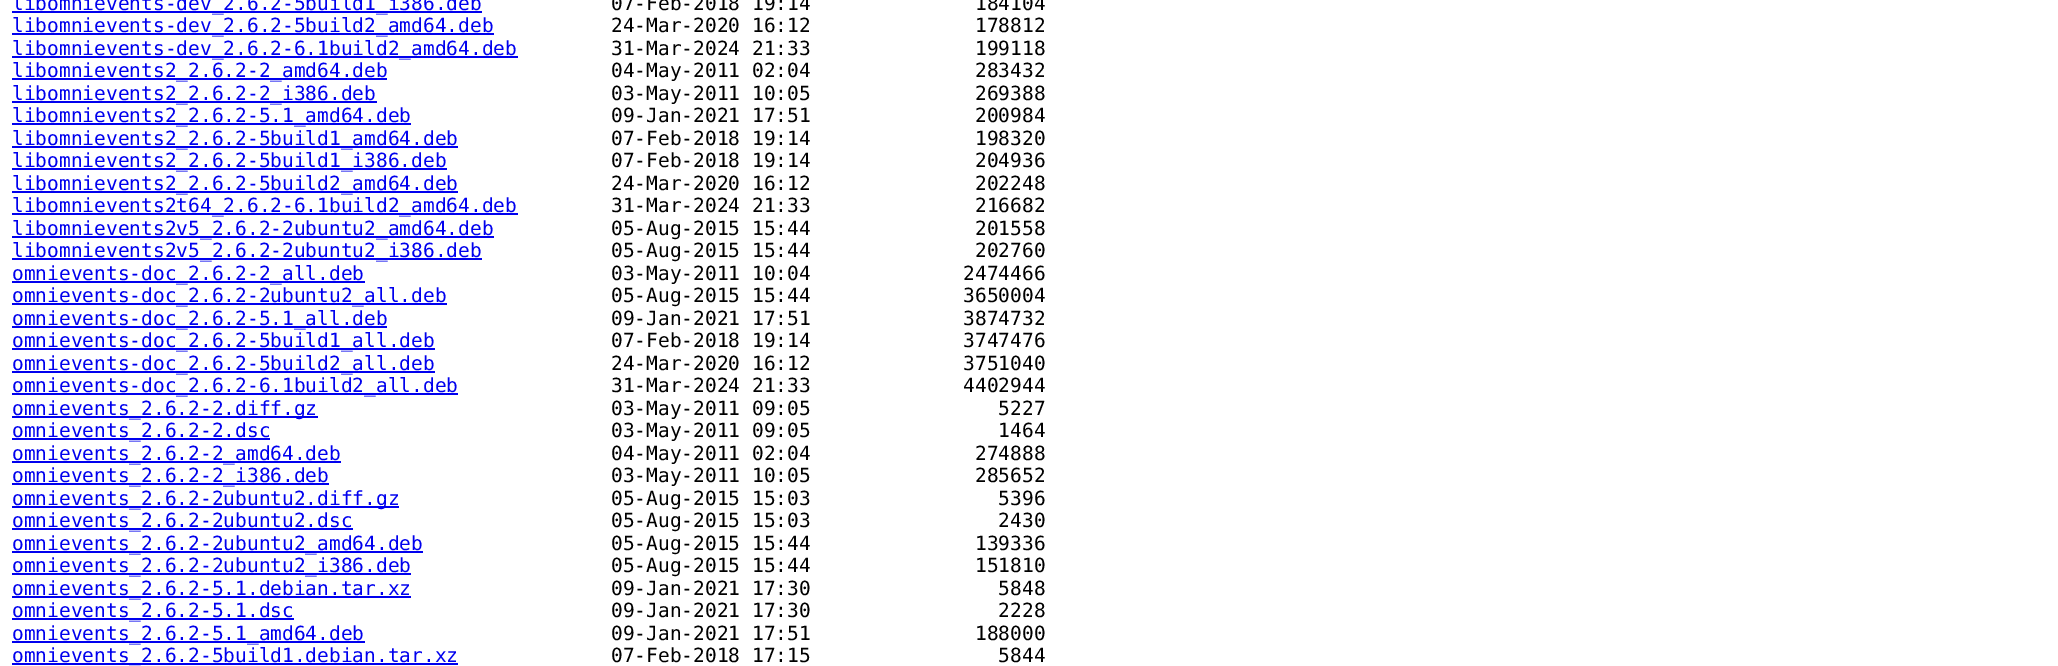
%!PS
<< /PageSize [2058 666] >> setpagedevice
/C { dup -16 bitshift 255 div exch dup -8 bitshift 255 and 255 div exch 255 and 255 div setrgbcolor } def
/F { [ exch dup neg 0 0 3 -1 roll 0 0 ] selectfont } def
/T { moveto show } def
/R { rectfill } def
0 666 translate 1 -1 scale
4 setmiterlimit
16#FFFFFF C
0 0 2058 666 R
16#0000EE C
12 11 470 2 R
/DejaVuSansMono-Regular 19.5 F
(libomnievents-dev_2.6.2-5build1_i386.deb) 12 10 T
16#000000 C
(07-Feb-2018 19:14              184104) 611 10 T
16#0000EE C
12 33 482 2 R
(libomnievents-dev_2.6.2-5build2_amd64.deb) 12 32 T
16#000000 C
(24-Mar-2020 16:12              178812) 611 32 T
16#0000EE C
12 56 506 2 R
(libomnievents-dev_2.6.2-6.1build2_amd64.deb) 12 55 T
16#000000 C
(31-Mar-2024 21:33              199118) 611 55 T
16#0000EE C
12 78 375 2 R
(libomnievents2_2.6.2-2_amd64.deb) 12 77 T
16#000000 C
(04-May-2011 02:04              283432) 611 77 T
16#0000EE C
12 101 365 2 R
(libomnievents2_2.6.2-2_i386.deb) 12 100 T
16#000000 C
(03-May-2011 10:05              269388) 611 100 T
16#0000EE C
12 123 399 2 R
(libomnievents2_2.6.2-5.1_amd64.deb) 12 122 T
16#000000 C
(09-Jan-2021 17:51              200984) 611 122 T
16#0000EE C
12 146 446 2 R
(libomnievents2_2.6.2-5build1_amd64.deb) 12 145 T
16#000000 C
(07-Feb-2018 19:14              198320) 611 145 T
16#0000EE C
12 168 435 2 R
(libomnievents2_2.6.2-5build1_i386.deb) 12 167 T
16#000000 C
(07-Feb-2018 19:14              204936) 611 167 T
16#0000EE C
12 191 446 2 R
(libomnievents2_2.6.2-5build2_amd64.deb) 12 190 T
16#000000 C
(24-Mar-2020 16:12              202248) 611 190 T
16#0000EE C
12 213 506 2 R
(libomnievents2t64_2.6.2-6.1build2_amd64.deb) 12 212 T
16#000000 C
(31-Mar-2024 21:33              216682) 611 212 T
16#0000EE C
12 236 482 2 R
(libomnievents2v5_2.6.2-2ubuntu2_amd64.deb) 12 235 T
16#000000 C
(05-Aug-2015 15:44              201558) 611 235 T
16#0000EE C
12 258 470 2 R
(libomnievents2v5_2.6.2-2ubuntu2_i386.deb) 12 257 T
16#000000 C
(05-Aug-2015 15:44              202760) 611 257 T
16#0000EE C
12 281 353 2 R
(omnievents-doc_2.6.2-2_all.deb) 12 280 T
16#000000 C
(03-May-2011 10:04             2474466) 611 280 T
16#0000EE C
12 303 435 2 R
(omnievents-doc_2.6.2-2ubuntu2_all.deb) 12 302 T
16#000000 C
(05-Aug-2015 15:44             3650004) 611 302 T
16#0000EE C
12 326 375 2 R
(omnievents-doc_2.6.2-5.1_all.deb) 12 325 T
16#000000 C
(09-Jan-2021 17:51             3874732) 611 325 T
16#0000EE C
12 348 423 2 R
(omnievents-doc_2.6.2-5build1_all.deb) 12 347 T
16#000000 C
(07-Feb-2018 19:14             3747476) 611 347 T
16#0000EE C
12 371 423 2 R
(omnievents-doc_2.6.2-5build2_all.deb) 12 370 T
16#000000 C
(24-Mar-2020 16:12             3751040) 611 370 T
16#0000EE C
12 393 446 2 R
(omnievents-doc_2.6.2-6.1build2_all.deb) 12 392 T
16#000000 C
(31-Mar-2024 21:33             4402944) 611 392 T
16#0000EE C
12 416 306 2 R
(omnievents_2.6.2-2.diff.gz) 12 415 T
16#000000 C
(03-May-2011 09:05                5227) 611 415 T
16#0000EE C
12 438 258 2 R
(omnievents_2.6.2-2.dsc) 12 437 T
16#000000 C
(03-May-2011 09:05                1464) 611 437 T
16#0000EE C
12 461 329 2 R
(omnievents_2.6.2-2_amd64.deb) 12 460 T
16#000000 C
(04-May-2011 02:04              274888) 611 460 T
16#0000EE C
12 483 317 2 R
(omnievents_2.6.2-2_i386.deb) 12 482 T
16#000000 C
(03-May-2011 10:05              285652) 611 482 T
16#0000EE C
12 506 387 2 R
(omnievents_2.6.2-2ubuntu2.diff.gz) 12 505 T
16#000000 C
(05-Aug-2015 15:03                5396) 611 505 T
16#0000EE C
12 528 341 2 R
(omnievents_2.6.2-2ubuntu2.dsc) 12 527 T
16#000000 C
(05-Aug-2015 15:03                2430) 611 527 T
16#0000EE C
12 551 411 2 R
(omnievents_2.6.2-2ubuntu2_amd64.deb) 12 550 T
16#000000 C
(05-Aug-2015 15:44              139336) 611 550 T
16#0000EE C
12 573 399 2 R
(omnievents_2.6.2-2ubuntu2_i386.deb) 12 572 T
16#000000 C
(05-Aug-2015 15:44              151810) 611 572 T
16#0000EE C
12 596 399 2 R
(omnievents_2.6.2-5.1.debian.tar.xz) 12 595 T
16#000000 C
(09-Jan-2021 17:30                5848) 611 595 T
16#0000EE C
12 618 282 2 R
(omnievents_2.6.2-5.1.dsc) 12 617 T
16#000000 C
(09-Jan-2021 17:30                2228) 611 617 T
16#0000EE C
12 641 353 2 R
(omnievents_2.6.2-5.1_amd64.deb) 12 640 T
16#000000 C
(09-Jan-2021 17:51              188000) 611 640 T
16#0000EE C
12 663 446 2 R
(omnievents_2.6.2-5build1.debian.tar.xz) 12 662 T
16#000000 C
(07-Feb-2018 17:15                5844) 611 662 T
showpage
